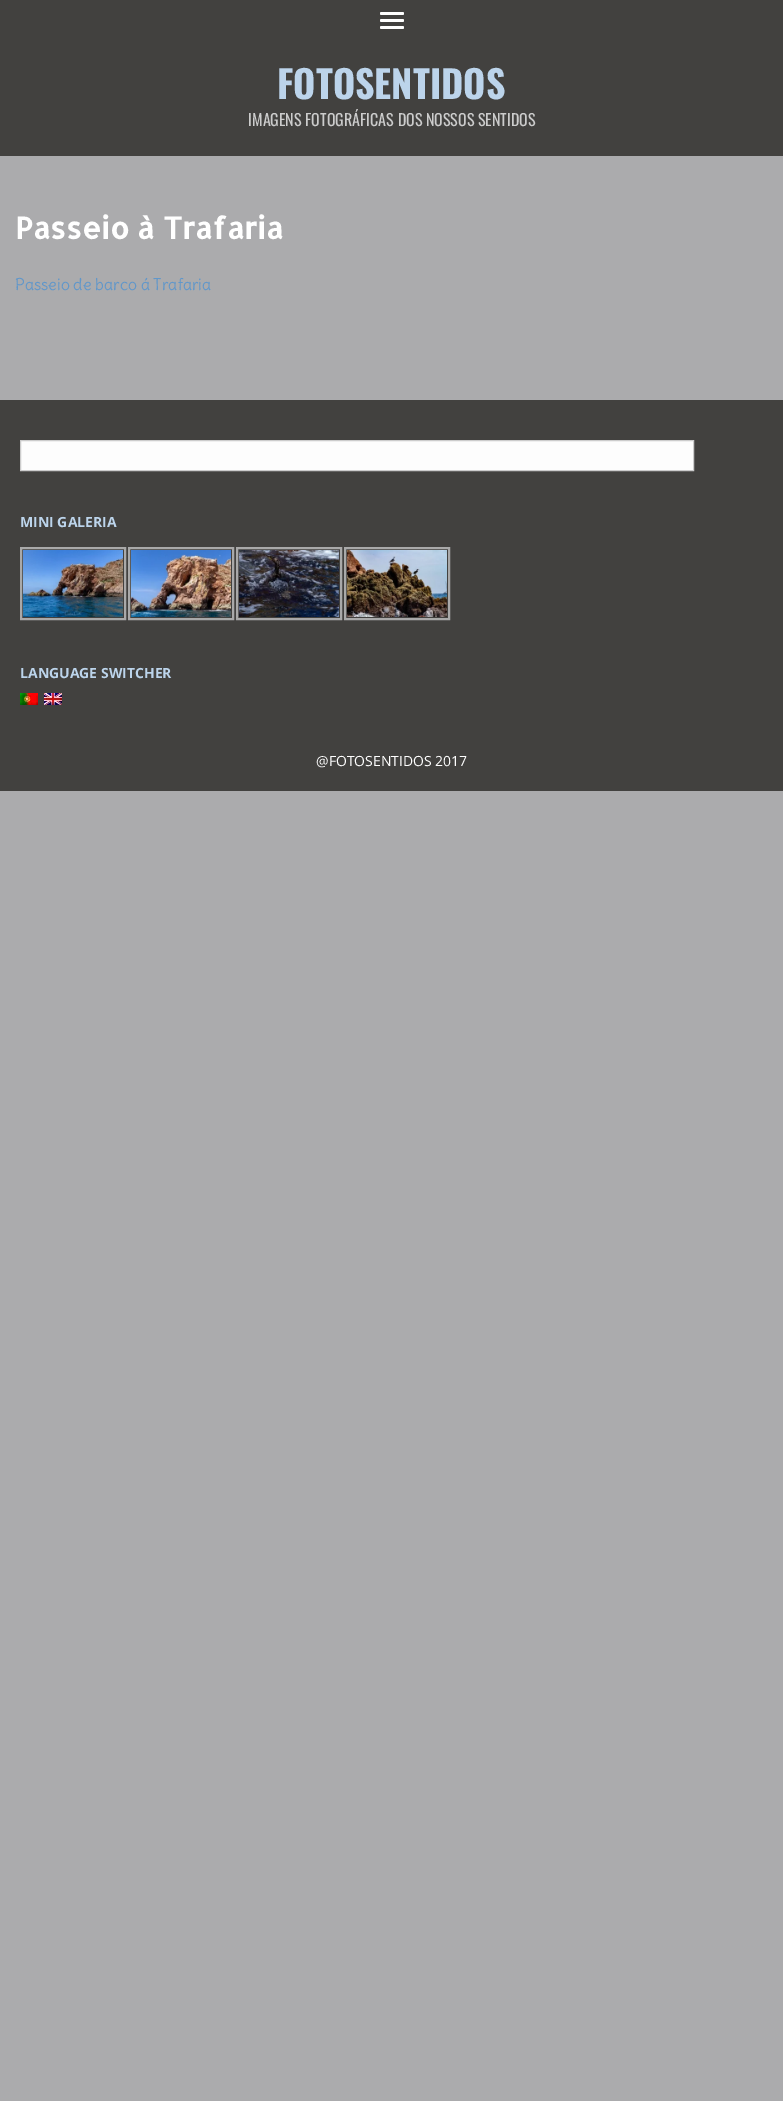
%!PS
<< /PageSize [783 2101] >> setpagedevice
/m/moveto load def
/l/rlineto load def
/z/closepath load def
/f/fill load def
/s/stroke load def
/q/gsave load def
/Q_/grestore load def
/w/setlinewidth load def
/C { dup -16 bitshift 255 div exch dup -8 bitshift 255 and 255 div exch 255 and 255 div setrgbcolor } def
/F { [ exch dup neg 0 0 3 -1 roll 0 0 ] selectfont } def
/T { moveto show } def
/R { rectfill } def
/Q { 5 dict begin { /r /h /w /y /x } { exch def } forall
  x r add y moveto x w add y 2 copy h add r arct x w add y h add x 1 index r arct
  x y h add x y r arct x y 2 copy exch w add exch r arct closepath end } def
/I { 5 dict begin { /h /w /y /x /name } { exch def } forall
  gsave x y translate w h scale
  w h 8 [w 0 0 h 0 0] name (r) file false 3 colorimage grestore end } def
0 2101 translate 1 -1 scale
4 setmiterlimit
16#ABABAD C
0 0 783 2101 R
16#42413F C
0 0 783 156 R
16#FFFFFF C
380 12 24 3 1.5 Q f
380 19 24 3 1.5 Q f
380 26 24 3 1.5 Q f
/Oswald-Bold 38 F
16#BCD4EB C
(FOTOSENTIDOS) 277 99 T
/Oswald-Regular 16 F
16#CCCCCC C
(IMAGENS FOTOGRÁFICAS DOS NOSSOS SENTIDOS) 248 126 T
/Allerta-Bold 30 F
16#FFFFFF C
(Passeio à Trafaria) 15 239 T
/Delius-Regular 16 F
16#6197CA C
(Passeio de barco á Trafaria) 15 290 T
16#42413F C
0 400 783 391 R
16#FDFDFD C
20.5 440.5 m 673 0 l 0 30 l -673 0 l z q f Q_
16#CCCCCC C
s
/OpenSans-Bold 14 F
16#BCD4EB C
(MINI GALERIA) 20 527 T
16#A9A9A9 C
2 w
21 548 104 71 rectstroke
(1.rgb) 23 550 100 67 I
129 548 104 71 rectstroke
(2.rgb) 131 550 100 67 I
237 548 104 71 rectstroke
(3.rgb) 239 550 100 67 I
345 548 104 71 rectstroke
(4.rgb) 347 550 100 67 I
16#BCD4EB C
(LANGUAGE SWITCHER) 20 678 T
(5.rgb) 20 693 18 12 I
(6.rgb) 44 693 18 12 I
/OpenSans-Regular 14 F
16#FFFFFF C
(@FOTOSENTIDOS 2017) 316 766 T
showpage
